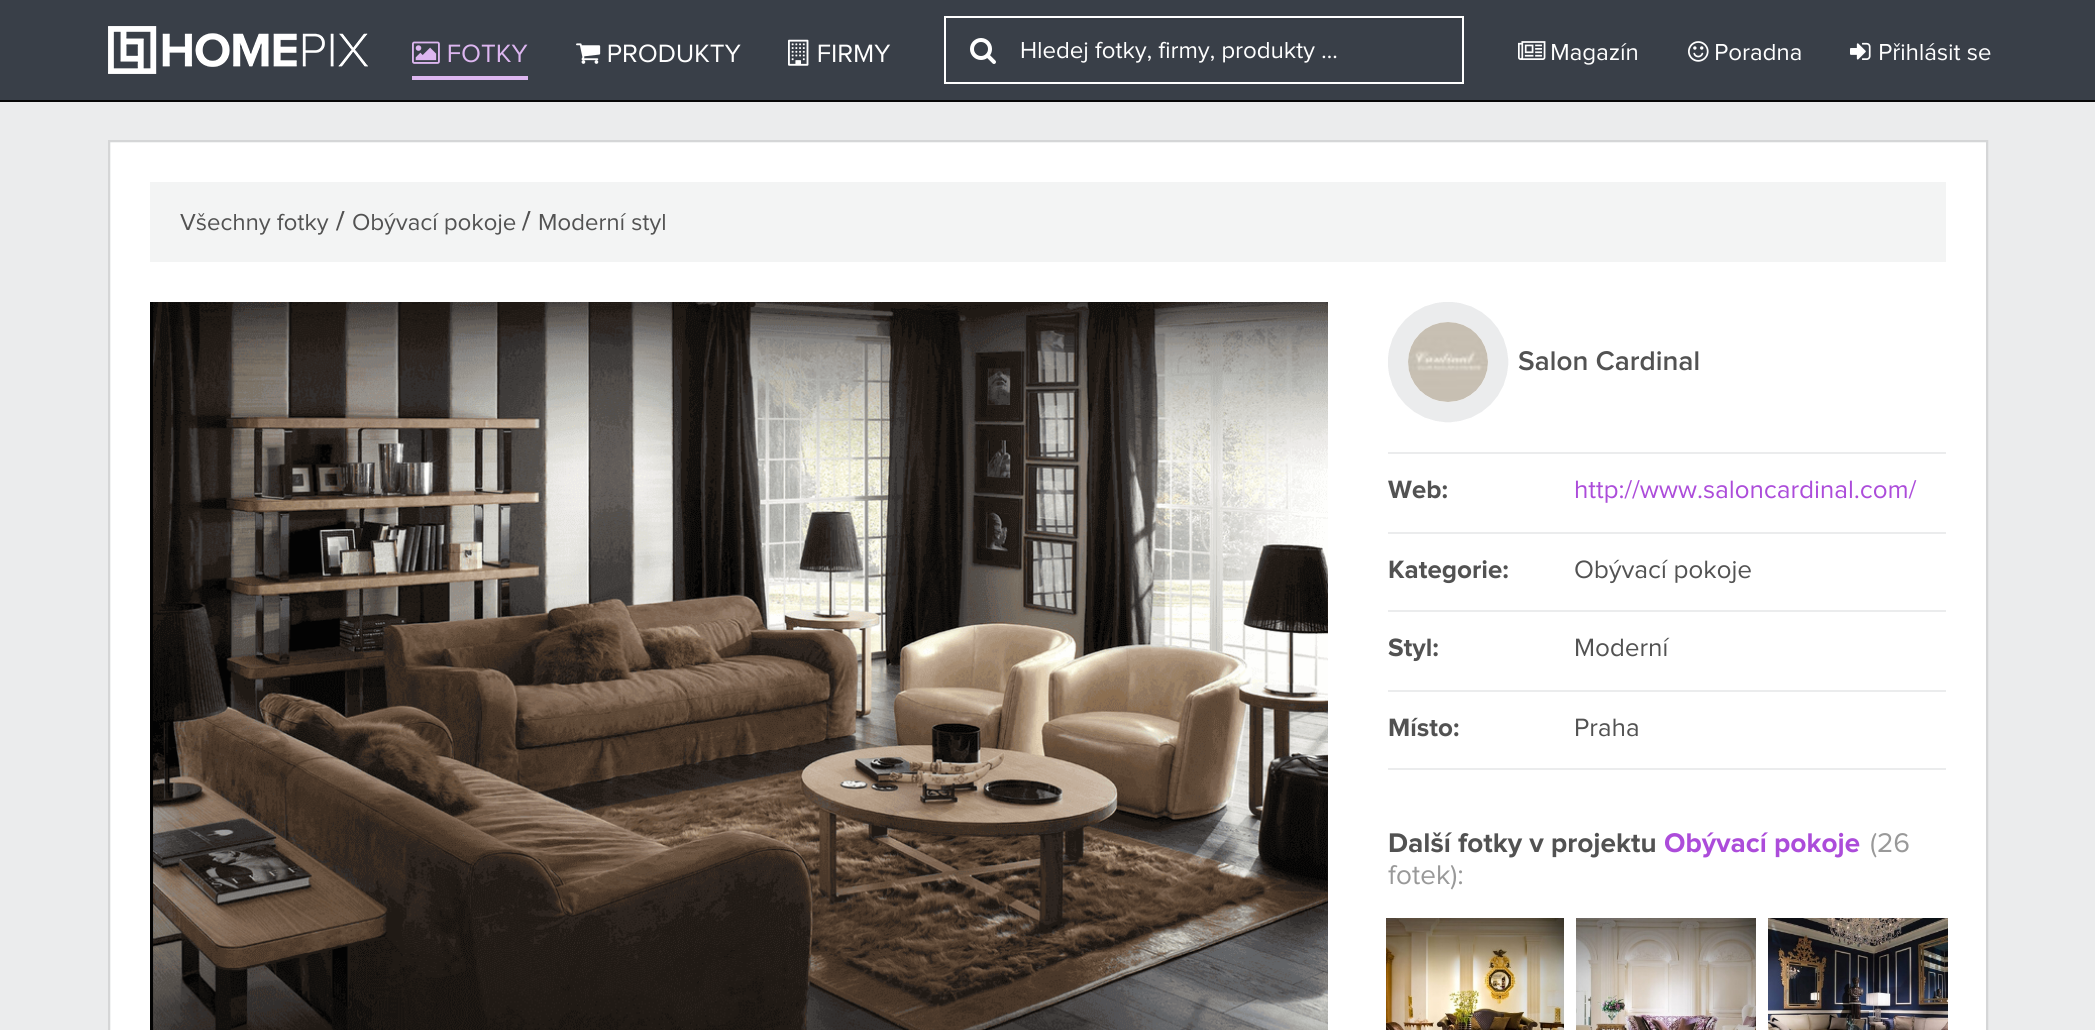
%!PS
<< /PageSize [2095 1030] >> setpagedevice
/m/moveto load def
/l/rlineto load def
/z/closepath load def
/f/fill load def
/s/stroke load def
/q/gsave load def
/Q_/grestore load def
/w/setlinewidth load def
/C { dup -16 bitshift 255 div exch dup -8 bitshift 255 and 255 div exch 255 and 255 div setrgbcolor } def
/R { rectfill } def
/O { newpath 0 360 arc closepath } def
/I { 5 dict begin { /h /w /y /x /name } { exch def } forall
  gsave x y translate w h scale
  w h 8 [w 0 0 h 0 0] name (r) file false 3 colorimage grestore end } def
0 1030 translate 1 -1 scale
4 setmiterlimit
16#EBECED C
0 0 2095 1030 R
16#393F48 C
0 0 2095 100 R
16#080808 C
0 100 2095 2 R
(1.rgb) 108 26 260 48 I
16#DDB6F0 C
412 76 116 4 R
(2.rgb) 412 41 28 23 I
(3.rgb) 448 44 80 19 I
(4.rgb) 576 43 25 21 I
(5.rgb) 608 44 133 19 I
(6.rgb) 788 39 21 27 I
(7.rgb) 818 44 73 18 I
16#FFFFFF C
944 16 520 2 R
944 82 76 2 R
944 16 2 68 R
(8.rgb) 970 38 26 26 I
16#353A43 C
1020 18 442 2 R
16#FFFFFF C
1462 16 2 68 R
1020 82 444 2 R
(9.rgb) 1021 41 316 22 I
(10.rgb) 1518 41 28 19 I
(11.rgb) 1552 43 85 22 I
(12.rgb) 1688 41 21 21 I
(13.rgb) 1716 44 85 17 I
(14.rgb) 1850 42 21 18 I
(15.rgb) 1880 43 111 18 I
109 141 m 1878 0 l 0 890 l -1878 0 l z q f Q_
16#D5D6D7 C
2 w
s
16#F3F4F4 C
150 182 1796 80 R
(16.rgb) 180 213 149 22 I
16#525252 C
337.5 230.5 m 7 -19.5 l -2 0 l -6.5 19.5 l z f
(17.rgb) 353 213 163 22 I
523.5 230.5 m 7 -19.5 l -2 0 l -6.5 19.5 l z f
(18.rgb) 539 213 126 22 I
(19.rgb) 150 302 1178 728 I
16#EBECED C
1388 452 558 2 R
20 w
1448 362 50 O s
(20.rgb) 1408 322 80 80 I
(21.rgb) 1518 351 181 20 I
1388 532 558 2 R
(22.rgb) 1388 480 59 19 I
(23.rgb) 1575 480 342 23 I
1388 610 558 2 R
(24.rgb) 1389 560 119 24 I
(25.rgb) 1575 559 176 25 I
1388 690 558 2 R
(26.rgb) 1388 638 50 24 I
(27.rgb) 1576 637 94 20 I
1388 768 558 2 R
(28.rgb) 1389 717 70 20 I
(29.rgb) 1576 718 62 19 I
(30.rgb) 1389 832 266 26 I
(31.rgb) 1664 832 196 26 I
(32.rgb) 1871 833 38 25 I
(33.rgb) 1388 865 74 25 I
(34.rgb) 1386 918 178 112 I
(35.rgb) 1576 918 180 112 I
(36.rgb) 1768 918 180 112 I
showpage
